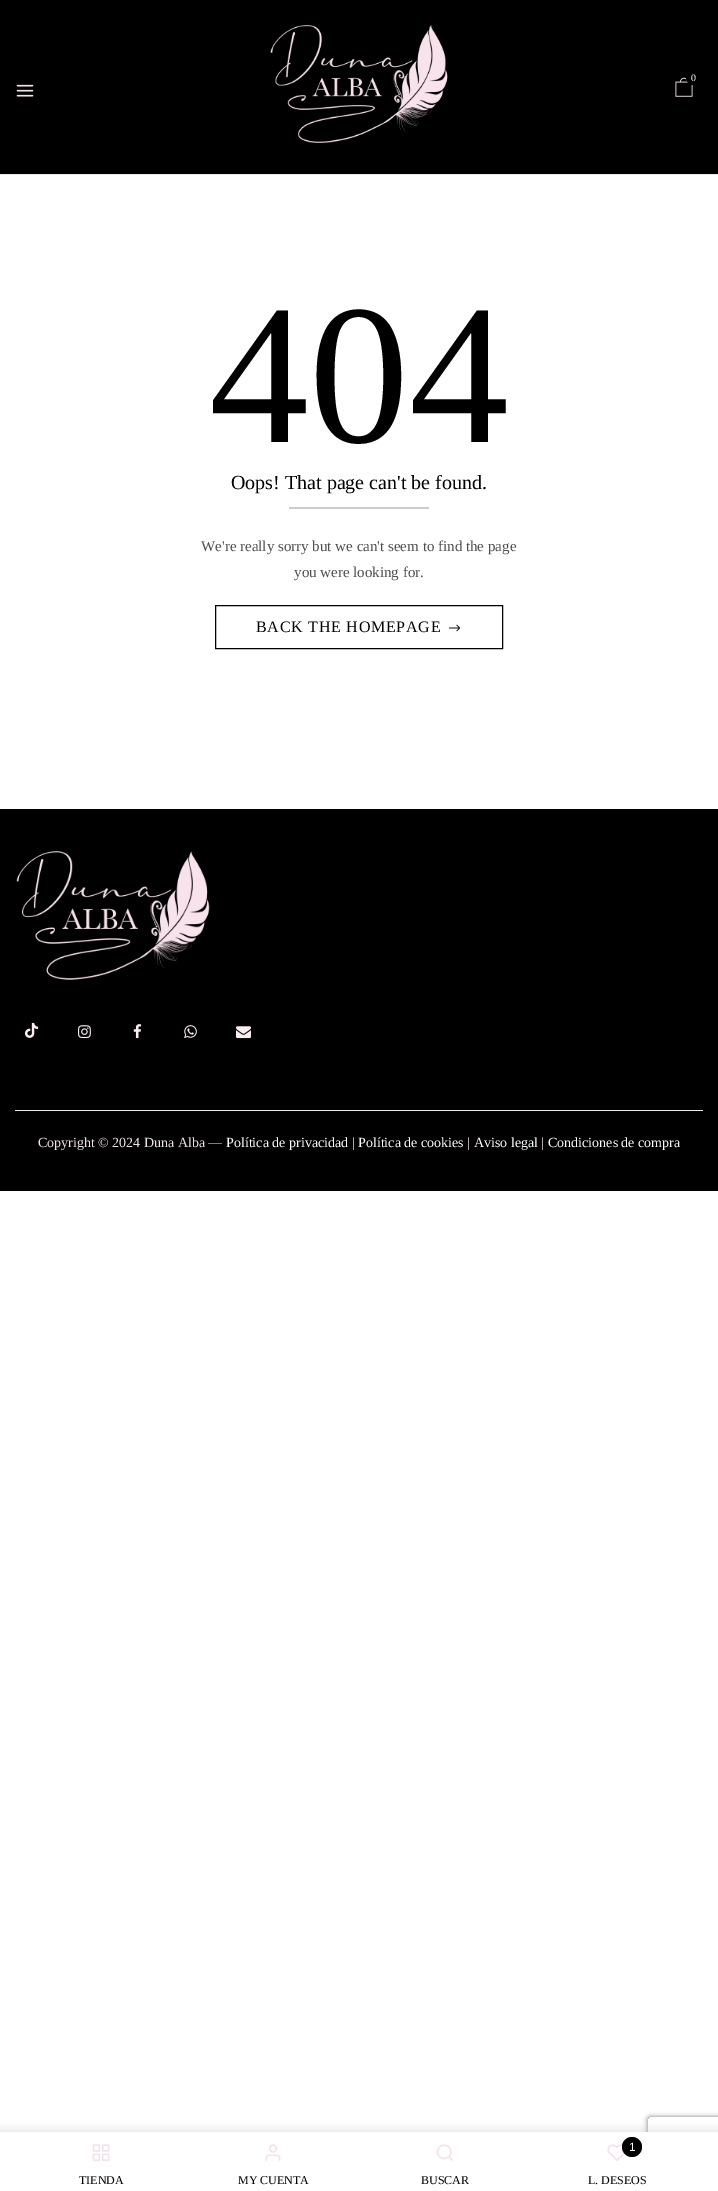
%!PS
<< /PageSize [718 2191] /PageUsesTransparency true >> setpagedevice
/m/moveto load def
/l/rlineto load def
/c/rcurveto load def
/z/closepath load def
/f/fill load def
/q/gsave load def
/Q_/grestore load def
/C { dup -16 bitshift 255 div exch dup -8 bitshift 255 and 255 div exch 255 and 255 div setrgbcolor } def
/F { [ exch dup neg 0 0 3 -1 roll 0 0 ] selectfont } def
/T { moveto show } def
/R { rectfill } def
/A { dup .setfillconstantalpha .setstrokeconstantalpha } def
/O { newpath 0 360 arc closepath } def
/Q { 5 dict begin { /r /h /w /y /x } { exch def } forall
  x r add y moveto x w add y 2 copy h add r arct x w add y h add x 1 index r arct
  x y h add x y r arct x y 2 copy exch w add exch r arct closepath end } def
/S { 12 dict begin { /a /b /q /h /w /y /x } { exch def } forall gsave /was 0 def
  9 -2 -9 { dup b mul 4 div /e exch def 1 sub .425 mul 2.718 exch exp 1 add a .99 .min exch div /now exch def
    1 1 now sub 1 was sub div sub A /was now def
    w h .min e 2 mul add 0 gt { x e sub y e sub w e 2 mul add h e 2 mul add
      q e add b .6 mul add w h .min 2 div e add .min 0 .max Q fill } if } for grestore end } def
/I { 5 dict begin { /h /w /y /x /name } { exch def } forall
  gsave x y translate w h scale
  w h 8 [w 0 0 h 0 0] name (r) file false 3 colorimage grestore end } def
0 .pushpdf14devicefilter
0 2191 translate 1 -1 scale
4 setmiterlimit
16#FFFFFF C
0 0 718 2191 R
16#000000 C
0 0 718 174 R
(1.rgb) 270 25 178 118 I
(2.rgb) 675 77 18 20 I
693.5 77.5 7.5 O f
/LiberationSerif-Regular 10 F
16#FFFFFF C
(0) 691 81 T
(3.rgb) 16 84 18 13 I
16#8F8F8F C
-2 2131 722 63 0 6 .3 S
q
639 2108 m 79 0 l 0 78 l -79 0 l z 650 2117 m 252 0 l 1 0 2 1 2 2 c 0 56 l 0 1 -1 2 -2 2 c -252 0 l -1 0 -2 -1 -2 -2 c 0 -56 l 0 -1 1 -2 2 -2 c z eoclip newpath
16#808080 C
648 2117 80 60 2 2.5 1 S
Q_
16#FFFFFF C
0 2132 718 59 R
(4.rgb) 92 2144 18 17 I
/LiberationSerif-Regular 12 F
16#000000 C
(TIENDA) 79 2184 T
(5.rgb) 265 2144 16 17 I
(MY CUENTA) 238 2184 T
(6.rgb) 436 2144 18 17 I
(BUSCAR) 421 2184 T
(7.rgb) 607 2144 18 17 I
632 2147 10 O f
/LiberationSans-Regular 12 F
16#FFFFFF C
(1) 629 2151 T
/LiberationSerif-Regular 12 F
16#000000 C
(L. DESEOS) 588 2184 T
16#E9E9E9 C
0 174 718 1 R
/LiberationSerif-Regular 200 F
16#000000 C
(404) 209 442 T
/LiberationSerif-Regular 20 F
(Oops! That page can't be found.) 231 489 T
16#CCCCCC C
289 507 140 2 R
/LiberationSerif-Regular 15 F
16#4E4E4E C
(We're really sorry but we can't seem to find the page) 201 551 T
(you were looking for.) 294 577 T
16#000000 C
215.5 605.5 287 43 rectstroke
/LiberationSerif-Regular 16 F
256 632 m .75 0 (BACK THE HOMEPAGE) ashow
(8.rgb) 448 624 13 8 I
0 809 718 382 R
(9.rgb) 16 851 194 129 I
(10.rgb) 24 1022 15 16 I
(11.rgb) 78 1025 13 14 I
(12.rgb) 133 1024 9 15 I
(13.rgb) 184 1025 13 13 I
(14.rgb) 236 1026 15 13 I
16#EDEDED C
15 1110 688 1 R
/LiberationSerif-Regular 14 F
16#F2E2EB C
(Copyright © 2024 Duna Alba —) 38 1147 T
16#FFFFFF C
(Política de privacidad) 226 1147 T
16#F2E2EB C
(|) 352 1147 T
16#FFFFFF C
(Política de cookies) 358 1147 T
16#F2E2EB C
(|) 467 1147 T
16#FFFFFF C
(Aviso legal) 474 1147 T
16#F2E2EB C
(|) 541 1147 T
16#FFFFFF C
(Condiciones de compra) 548 1147 T
.poppdf14devicefilter showpage
